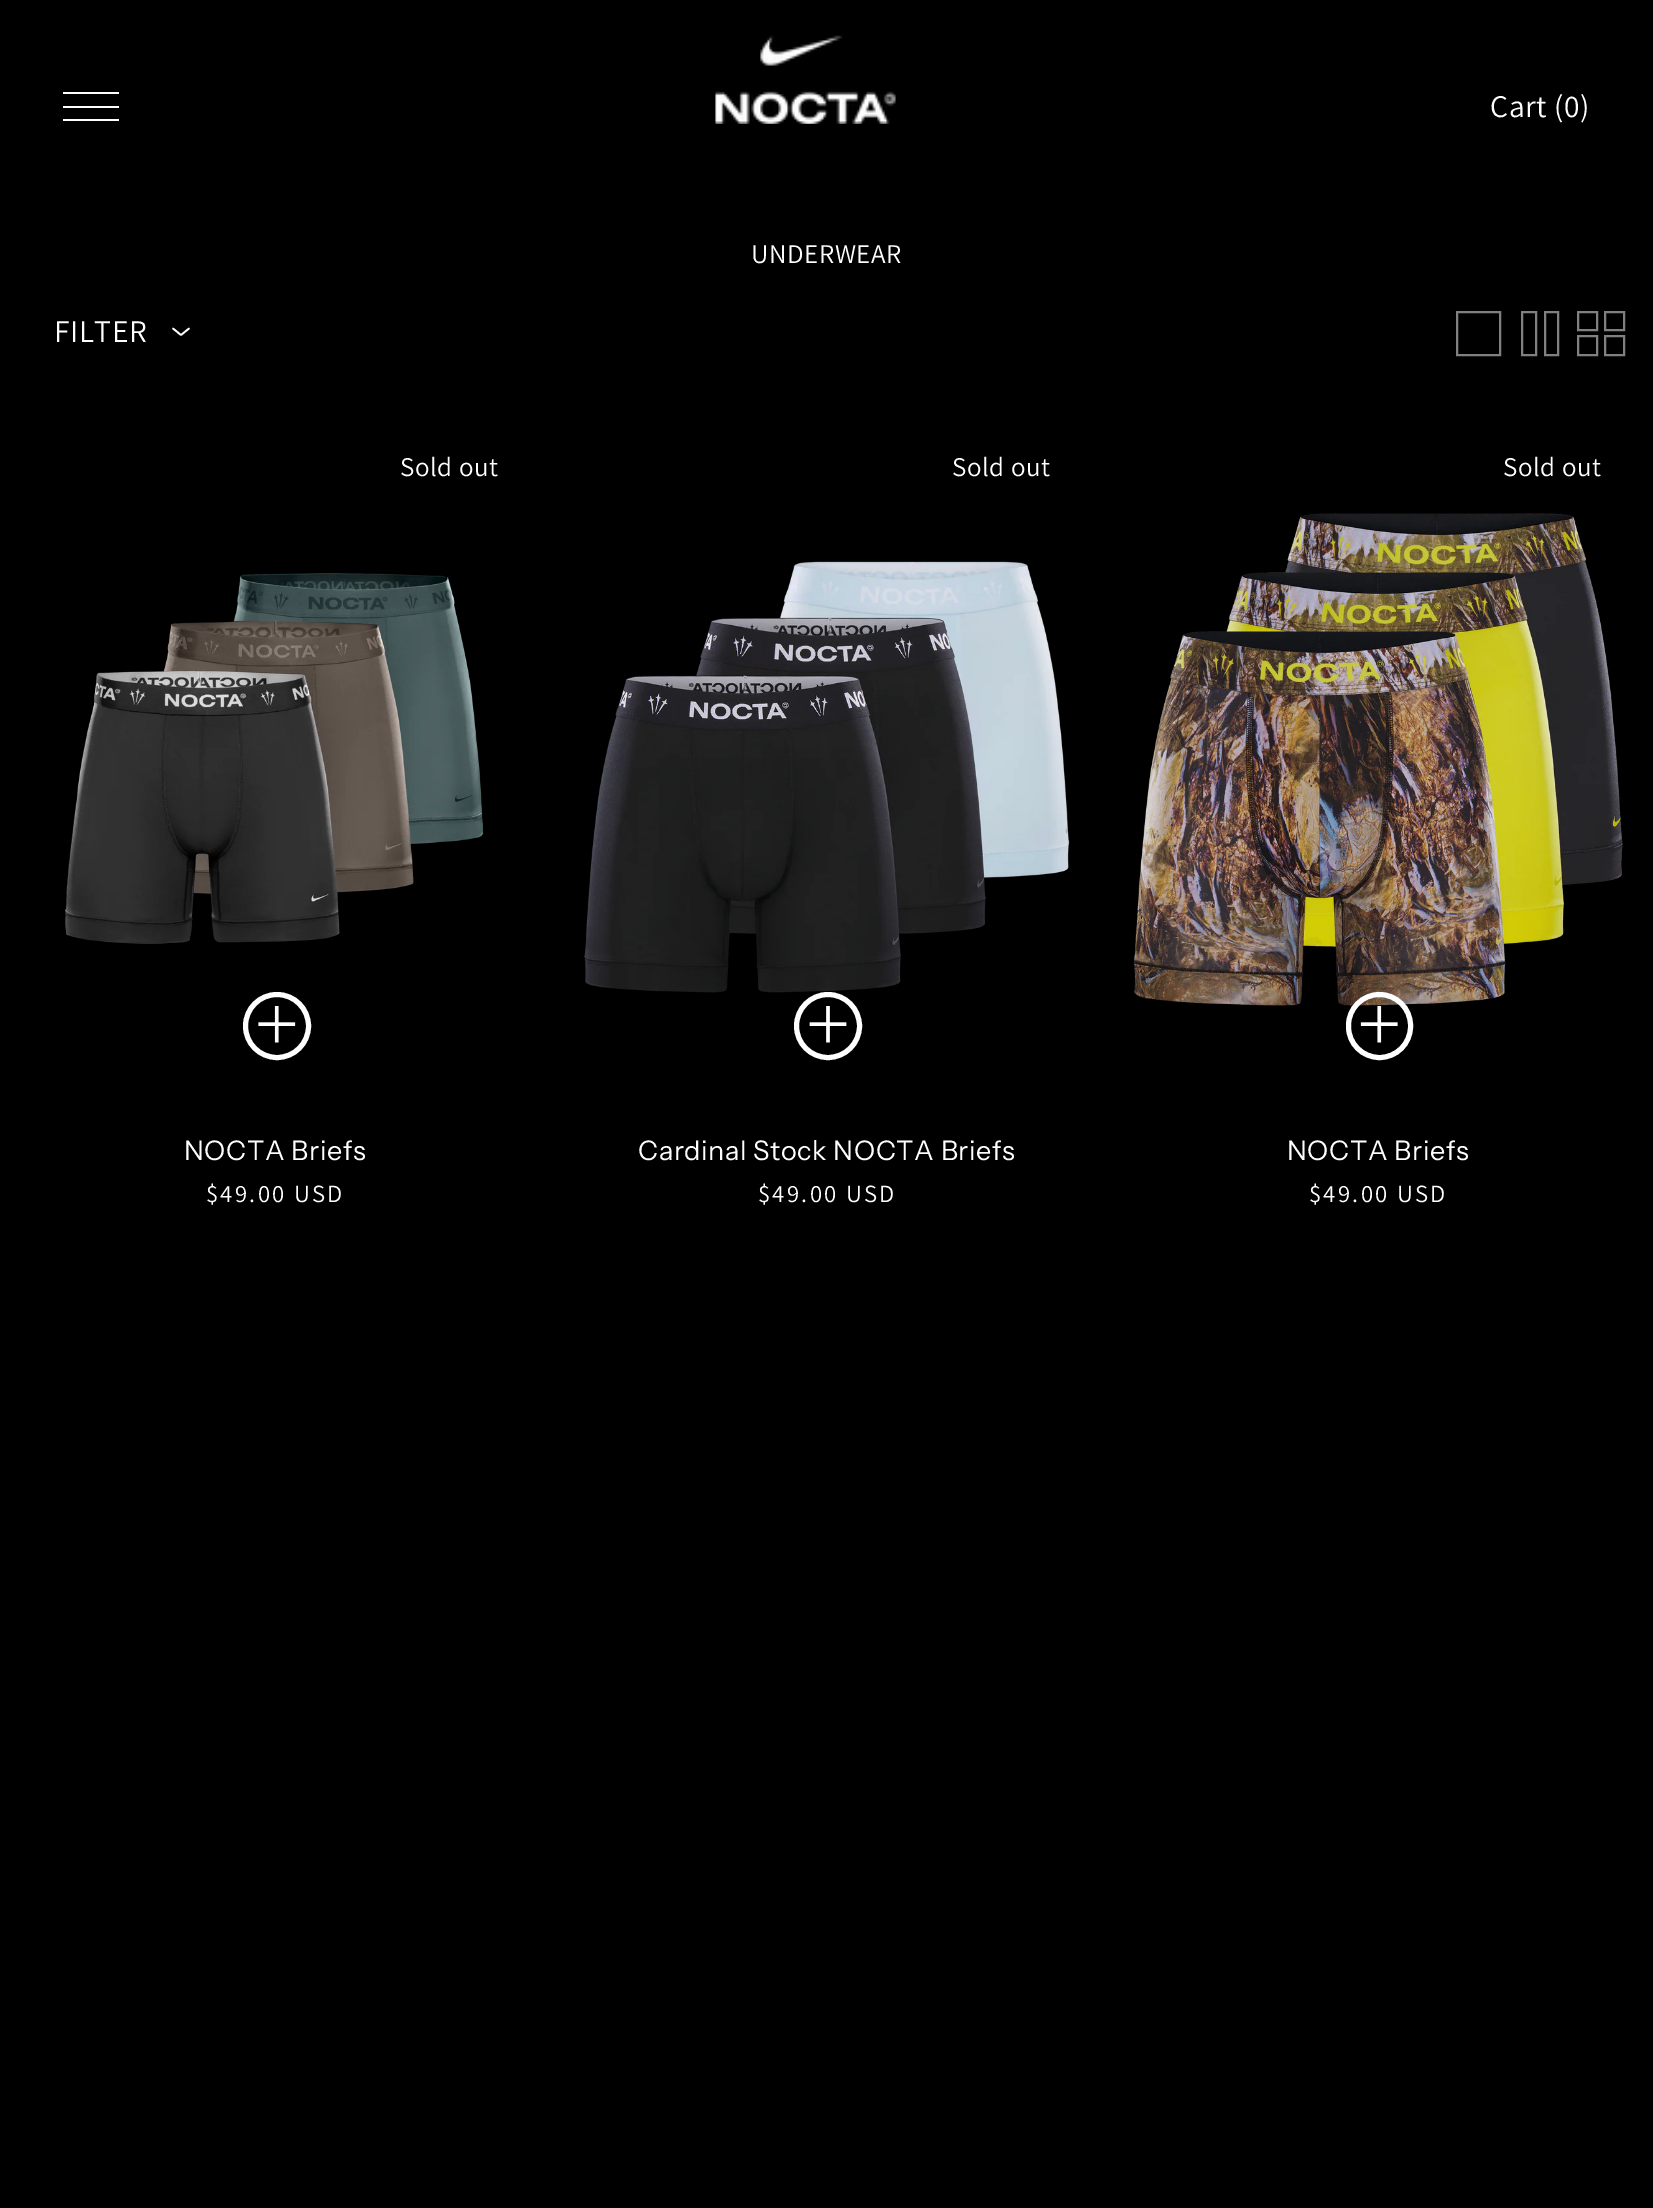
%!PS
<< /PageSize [1653 2208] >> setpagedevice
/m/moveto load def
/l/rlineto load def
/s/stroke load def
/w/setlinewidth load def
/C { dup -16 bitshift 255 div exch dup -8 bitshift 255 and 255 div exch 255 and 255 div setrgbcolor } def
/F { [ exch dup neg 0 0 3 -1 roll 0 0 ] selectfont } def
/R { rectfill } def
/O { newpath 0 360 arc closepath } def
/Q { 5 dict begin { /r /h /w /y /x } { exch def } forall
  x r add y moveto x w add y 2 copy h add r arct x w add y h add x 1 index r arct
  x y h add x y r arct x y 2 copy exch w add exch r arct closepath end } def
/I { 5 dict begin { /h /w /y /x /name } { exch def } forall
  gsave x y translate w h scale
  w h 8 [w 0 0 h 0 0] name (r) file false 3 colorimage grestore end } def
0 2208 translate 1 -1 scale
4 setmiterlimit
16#000000 C
0 0 1653 2208 R
16#FFFFFF C
63 92 56 2 R
63 106 56 2 R
63 119 56 2 R
(1.rgb) 715 35 181 89 I
/Assistant-Regular 31.5 F
1490 117 m .6 0 (Cart \(0\)) ashow
/Assistant-Regular 27 F
751 263 m .6 0 (UNDERWEAR) ashow
/Assistant-Regular 31.5 F
54 342 m .6 0 (FILTER) ashow
1.7 w
1 setlinecap
2 setlinejoin
173 328.5 m 8 6.5 l 8 -6.5 l s
16#808080 C
2 w
0 setlinecap
0 setlinejoin
1457 312 43 43 rectstroke
1522 312 14 43 rectstroke
1545 312 13 43 rectstroke
1578 312 19 18 rectstroke
1605 312 19 18 rectstroke
1578 336 19 19 rectstroke
1605 336 19 19 rectstroke
/Assistant-Regular 27 F
16#FFFFFF C
400 476 m .6 0 (Sold out) ashow
(2.rgb) 65 573 419 371 I
5 w
277 1026 31.5 O s
(3.rgb) 258 1006 38 37 I
/InstrumentSans-Regular 27 F
184 1160 m .6 0 (NOCTA Briefs) ashow
/Assistant-Regular 24.75 F
206 1202 m 2.25 0 ($49.00 USD) ashow
/Assistant-Regular 27 F
952 476 m .6 0 (Sold out) ashow
(4.rgb) 584 561 486 432 I
828 1026 31.5 O s
(5.rgb) 809 1006 38 37 I
/InstrumentSans-Regular 27 F
638 1160 m .6 0 (Cardinal Stock NOCTA Briefs) ashow
/Assistant-Regular 24.75 F
758 1202 m 2.25 0 ($49.00 USD) ashow
/Assistant-Regular 27 F
1503 476 m .6 0 (Sold out) ashow
(6.rgb) 1133 513 490 493 I
1348.5 994.5 62 63 31 Q s
(7.rgb) 1360 1006 38 37 I
/InstrumentSans-Regular 27 F
1287 1160 m .6 0 (NOCTA Briefs) ashow
/Assistant-Regular 24.75 F
1309 1202 m 2.25 0 ($49.00 USD) ashow
showpage
